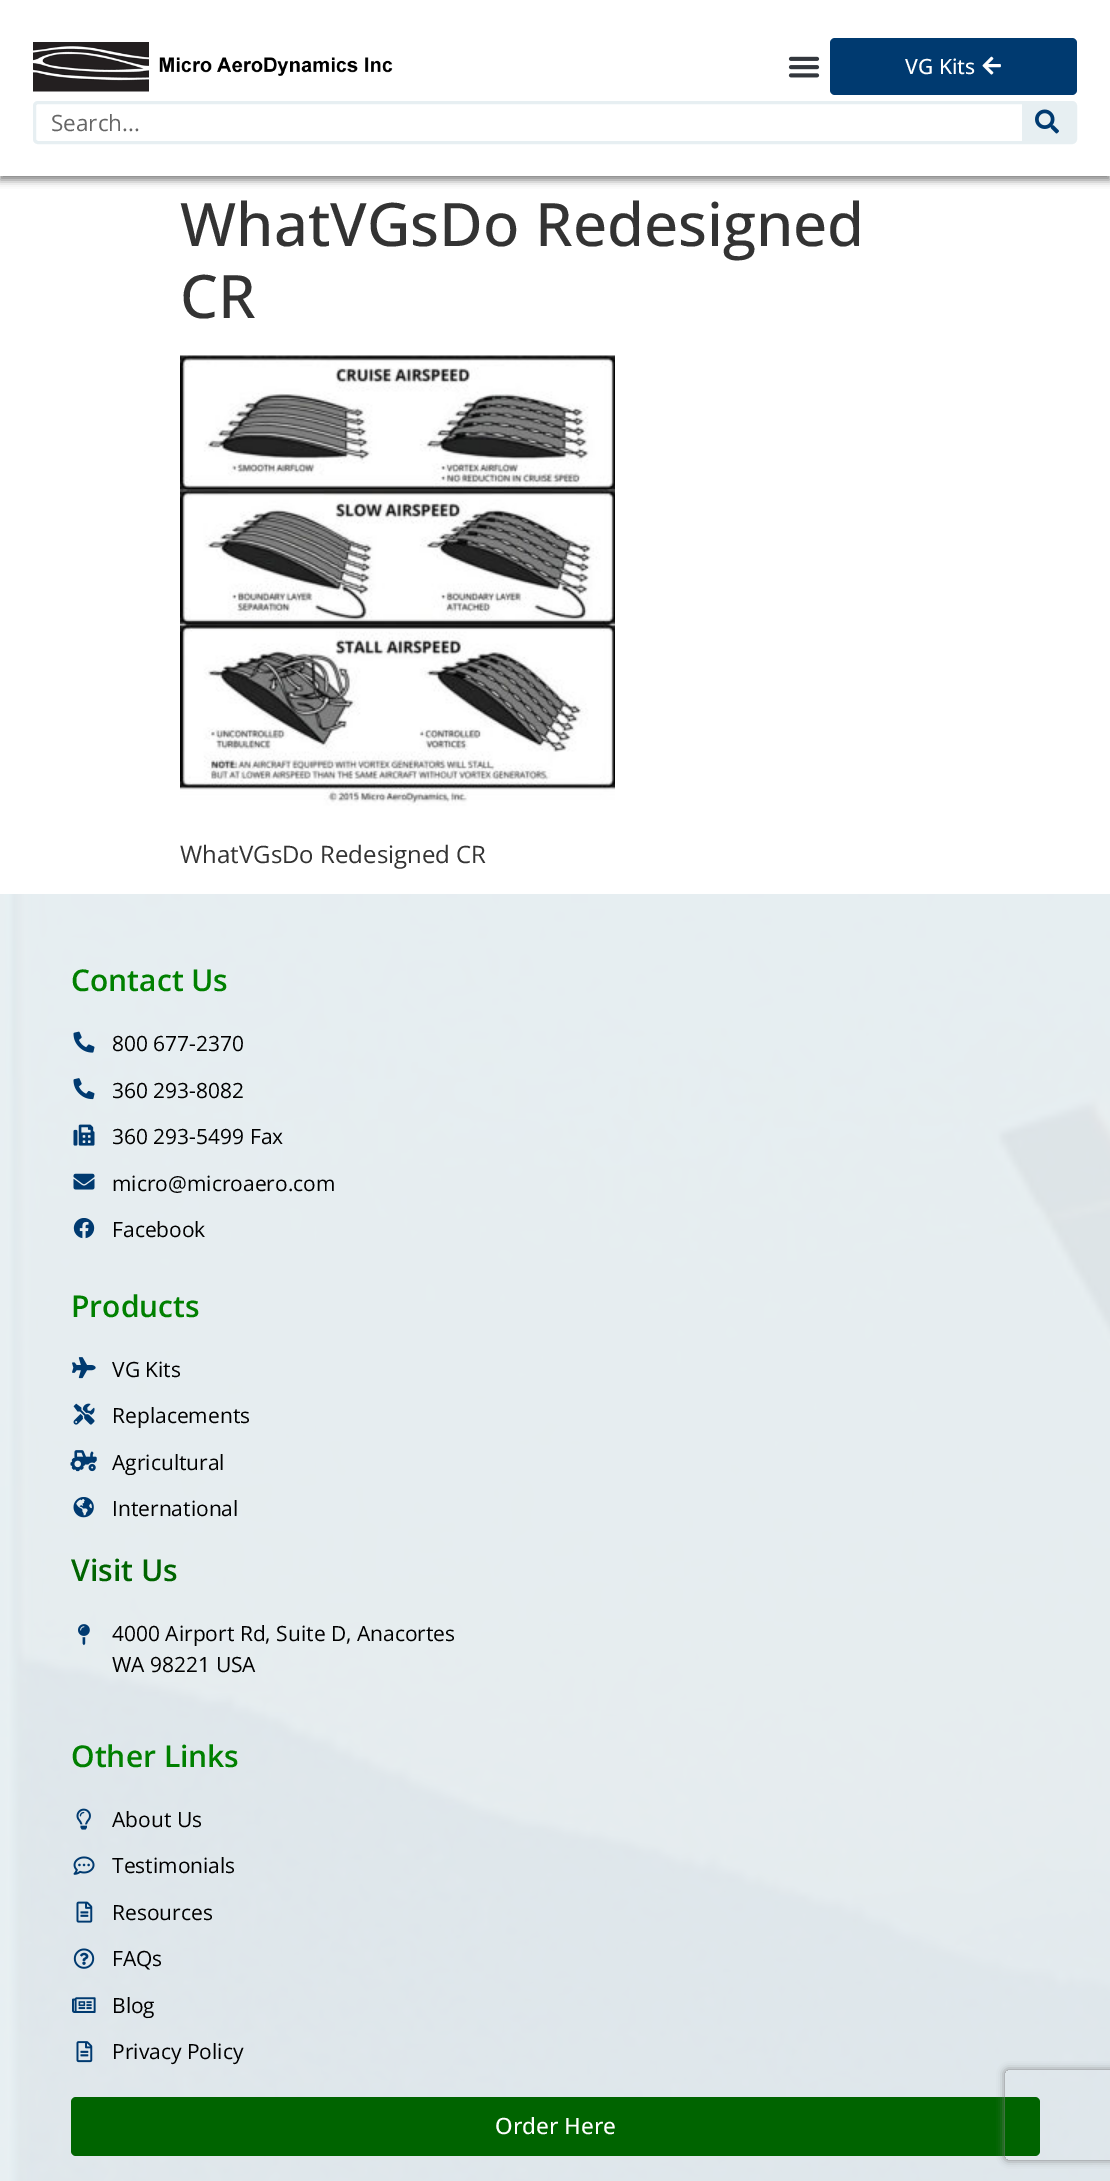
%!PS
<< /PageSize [1110 2181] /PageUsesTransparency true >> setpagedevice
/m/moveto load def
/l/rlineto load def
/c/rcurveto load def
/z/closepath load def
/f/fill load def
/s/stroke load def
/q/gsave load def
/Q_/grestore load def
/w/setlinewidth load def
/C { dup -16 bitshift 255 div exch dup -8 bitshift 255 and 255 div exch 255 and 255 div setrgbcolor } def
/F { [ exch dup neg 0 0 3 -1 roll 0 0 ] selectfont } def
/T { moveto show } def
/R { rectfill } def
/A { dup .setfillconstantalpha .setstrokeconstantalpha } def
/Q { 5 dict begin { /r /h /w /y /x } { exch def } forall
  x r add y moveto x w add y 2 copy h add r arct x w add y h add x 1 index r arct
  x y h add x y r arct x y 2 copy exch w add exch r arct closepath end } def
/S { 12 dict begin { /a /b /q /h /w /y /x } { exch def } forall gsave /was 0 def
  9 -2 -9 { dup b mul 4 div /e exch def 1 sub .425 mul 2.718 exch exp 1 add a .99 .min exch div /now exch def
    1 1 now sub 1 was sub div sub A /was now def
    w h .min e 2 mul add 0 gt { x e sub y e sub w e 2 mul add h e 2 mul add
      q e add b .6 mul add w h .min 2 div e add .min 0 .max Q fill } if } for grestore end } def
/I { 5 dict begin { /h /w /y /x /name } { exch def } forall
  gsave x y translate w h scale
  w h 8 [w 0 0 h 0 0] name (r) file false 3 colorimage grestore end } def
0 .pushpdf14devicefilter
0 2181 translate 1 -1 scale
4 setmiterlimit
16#FFFFFF C
0 0 1110 2181 R
16#000000 C
0 5 1110 175 0 4 .5 S
16#FFFFFF C
0 0 1110 176 R
(1.rgb) 33 42 360 50 I
(2.rgb) 788 56 32 22 I
16#003A70 C
830 38 247 57 5 Q f
/OpenSans-Medium 21 F
16#FFFFFF C
(VG Kits) 905 74 T
(3.rgb) 982 56 19 19 I
16#E7EFF2 C
3 w
34.5 102.5 1041 40 3.5 Q s
/OpenSans-Regular 22.5 F
16#666666 C
(Search...) 51 131 T
16#E7EFF2 C
1022 104 m 50.5 0 l 1 0 1.5 .5 1.5 1.5 c 0 34 l 0 1 -.5 1.5 -1.5 1.5 c -50.5 0 l z f
(4.rgb) 1035 109 24 25 I
/OpenSans-Medium 60 F
16#333333 C
(WhatVGsDo Redesigned) 180 246 T
(CR) 180 318 T
(5.rgb) 180 355 435 451 I
/OpenSans-Regular 24 F
(WhatVGsDo Redesigned CR) 180 863 T
(6.rgb) 0 894 1110 1287 I
/OpenSans-SemiBold 30 F
16#008000 C
(Contact Us) 71 991 T
(7.rgb) 73 1031 22 22 I
/OpenSans-Regular 21 F
16#000000 C
(800 677-2370) 112 1051 T
(8.rgb) 73 1078 22 22 I
(360 293-8082) 112 1098 T
(9.rgb) 73 1124 22 22 I
(360 293-5499 Fax) 112 1144 T
(10.rgb) 73 1173 22 17 I
(micro@microaero.com) 112 1191 T
(11.rgb) 73 1218 22 21 I
(Facebook) 112 1237 T
/OpenSans-SemiBold 30 F
16#008000 C
(Products) 71 1317 T
(12.rgb) 72 1357 24 22 I
/OpenSans-Regular 21 F
16#000000 C
(VG Kits) 112 1377 T
(13.rgb) 73 1403 22 22 I
(Replacements) 112 1423 T
(14.rgb) 70 1450 27 22 I
(Agricultural) 112 1470 T
(15.rgb) 73 1497 21 21 I
(International) 112 1516 T
/OpenSans-SemiBold 30 F
16#006400 C
(Visit Us) 71 1581 T
(16.rgb) 78 1624 12 22 I
/OpenSans-Regular 21 F
16#000000 C
(4000 Airport Rd, Suite D, Anacortes) 112 1641 T
(WA 98221 USA) 112 1672 T
/OpenSans-SemiBold 30 F
16#008000 C
(Other Links) 71 1767 T
(17.rgb) 76 1808 15 22 I
/OpenSans-Regular 21 F
16#000000 C
(About Us) 112 1827 T
(18.rgb) 73 1856 22 19 I
(Testimonials) 112 1873 T
(19.rgb) 76 1901 17 22 I
(Resources) 112 1920 T
(20.rgb) 73 1948 22 21 I
(FAQs) 112 1966 T
(21.rgb) 72 1997 24 16 I
(Blog) 112 2013 T
(22.rgb) 76 2041 17 22 I
(Privacy Policy) 112 2059 T
16#006400 C
71 2097 969 59 5 Q f
/OpenSans-Medium 22.5 F
16#FFFFFF C
(Order Here) 495 2134 T
q
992 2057 m 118 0 l 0 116 l -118 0 l z 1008 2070 m 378 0 l 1.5 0 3 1.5 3 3 c 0 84 l 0 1.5 -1.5 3 -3 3 c -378 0 l -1.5 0 -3 -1.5 -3 -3 c 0 -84 l 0 -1.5 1.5 -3 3 -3 c z eoclip newpath
16#808080 C
1005 2070 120 90 3 4 1 S
Q_
.poppdf14devicefilter showpage
